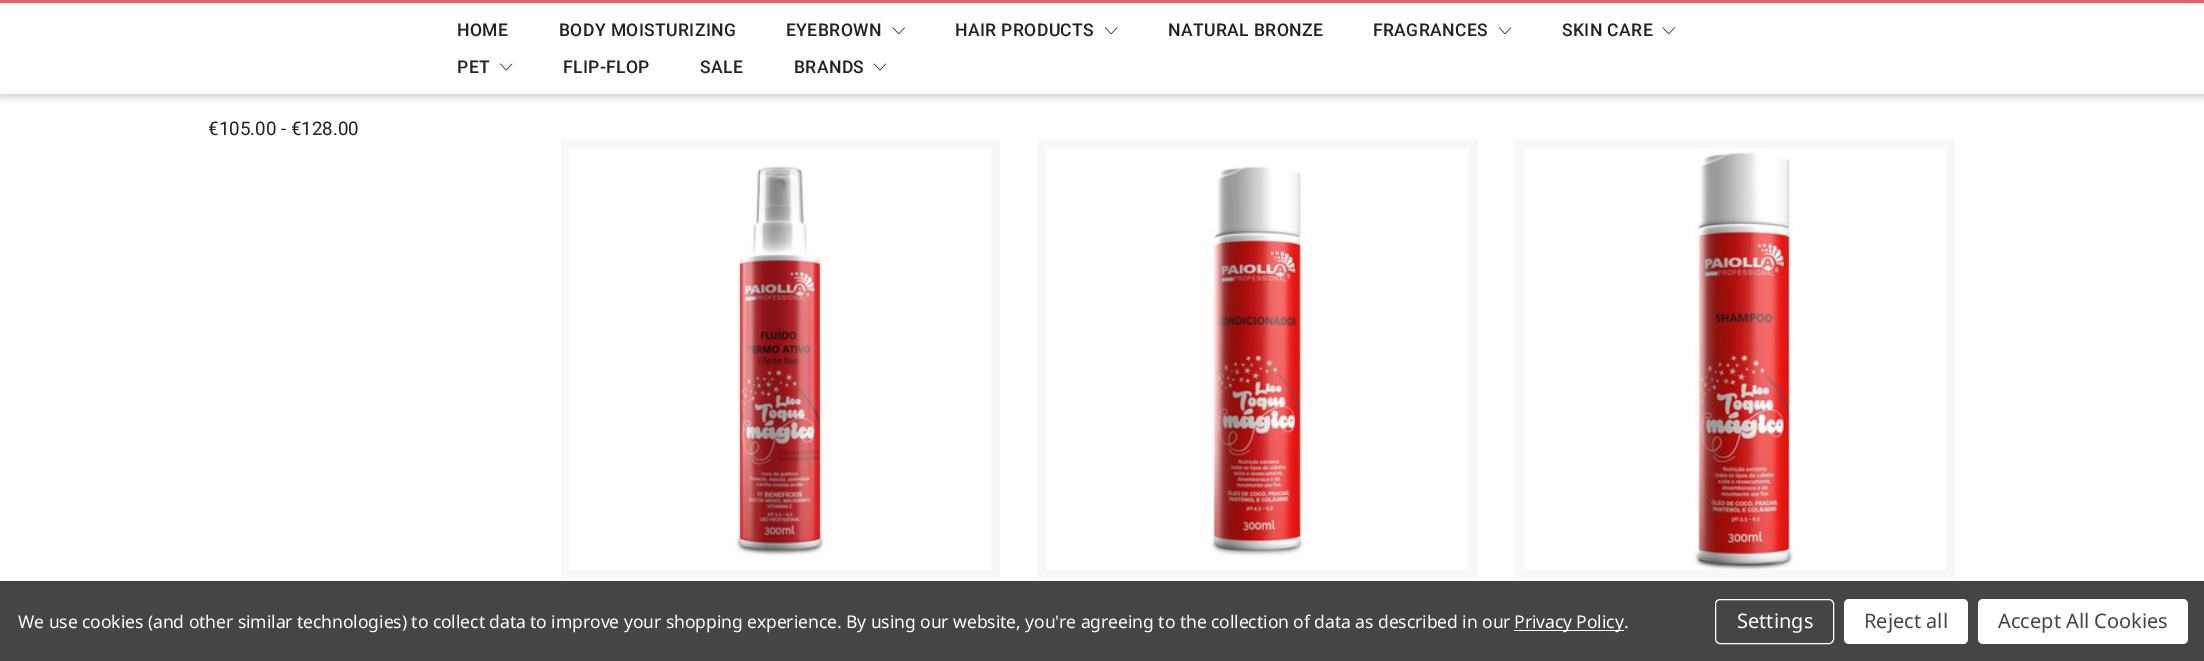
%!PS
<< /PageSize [2204 661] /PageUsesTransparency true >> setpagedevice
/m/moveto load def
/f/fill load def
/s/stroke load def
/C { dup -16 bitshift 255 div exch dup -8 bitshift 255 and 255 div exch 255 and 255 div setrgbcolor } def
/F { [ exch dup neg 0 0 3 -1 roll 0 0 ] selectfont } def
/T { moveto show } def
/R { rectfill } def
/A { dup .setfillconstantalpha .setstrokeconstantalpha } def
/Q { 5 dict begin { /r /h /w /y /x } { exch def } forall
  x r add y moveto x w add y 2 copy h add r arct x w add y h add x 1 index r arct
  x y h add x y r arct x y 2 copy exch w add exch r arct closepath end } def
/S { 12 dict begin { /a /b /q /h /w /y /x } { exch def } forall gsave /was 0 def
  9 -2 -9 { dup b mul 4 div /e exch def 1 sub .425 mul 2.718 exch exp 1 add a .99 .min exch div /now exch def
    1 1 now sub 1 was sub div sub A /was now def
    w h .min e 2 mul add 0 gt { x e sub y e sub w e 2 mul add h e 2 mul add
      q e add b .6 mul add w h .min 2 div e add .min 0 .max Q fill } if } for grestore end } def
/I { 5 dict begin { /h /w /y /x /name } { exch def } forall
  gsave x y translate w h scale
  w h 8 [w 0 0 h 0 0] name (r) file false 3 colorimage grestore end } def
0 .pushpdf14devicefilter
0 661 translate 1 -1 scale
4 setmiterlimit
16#FFFFFF C
0 0 2204 661 R
16#000000 C
0 0 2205 95 0 4.5 .3 S
16#FFFFFF C
0 3 2204 91 R
16#F05A66 C
0 0 2204 3 R
16#E0E0E0 C
0 94 2204 1 R
/Roboto-Medium 17.5 F
16#222222 C
457 36 m .4 0 (HOME) ashow
559 36 m .4 0 (BODY MOISTURIZING) ashow
786 36 m .4 0 (EYEBROWN) ashow
(1.rgb) 892 27 13 8 I
955 36 m .4 0 (HAIR PRODUCTS) ashow
(2.rgb) 1105 27 13 8 I
1168 36 m .4 0 (NATURAL BRONZE) ashow
1373 36 m .4 0 (FRAGRANCES) ashow
(3.rgb) 1498 27 14 8 I
1562 36 m .4 0 (SKIN CARE) ashow
(1.rgb) 1662 27 13 8 I
457 73 m .4 0 (PET) ashow
(4.rgb) 500 63 13 8 I
563 73 m .4 0 (FLIP-FLOP) ashow
700 73 m .4 0 (SALE) ashow
794 73 m .4 0 (BRANDS) ashow
(5.rgb) 873 63 14 8 I
/Roboto-Regular 18.75 F
(€105.00 - €128.00) 208 135 T
16#F8F8F8 C
561 139 439 439 R
(6.rgb) 569 148 422 422 I
1038 139 440 439 R
(7.rgb) 1046 148 423 422 I
1515 139 440 439 R
(8.rgb) 1524 148 422 422 I
16#454545 C
0 581 2204 80 R
/NotoSans-Regular 17.5 F
16#FFFFFF C
18 628 m -.06 0 (We use cookies \(and other similar technologies\) to collect data to improve your shopping experience. By using our website, you're agreeing to the collection of data as described in our) ashow
1514 630 110 1 R
1514 628 m -.06 0 (Privacy Policy.) ashow
1715.5 599.5 118 44 4.5 Q s
/NotoSans-Regular 20 F
(Settings) 1737 628 T
1844 599 124 45 5 Q f
16#454545 C
(Reject all) 1864 628 T
16#FFFFFF C
1978 599 210 45 5 Q f
16#454545 C
(Accept All Cookies) 1998 628 T
.poppdf14devicefilter showpage
